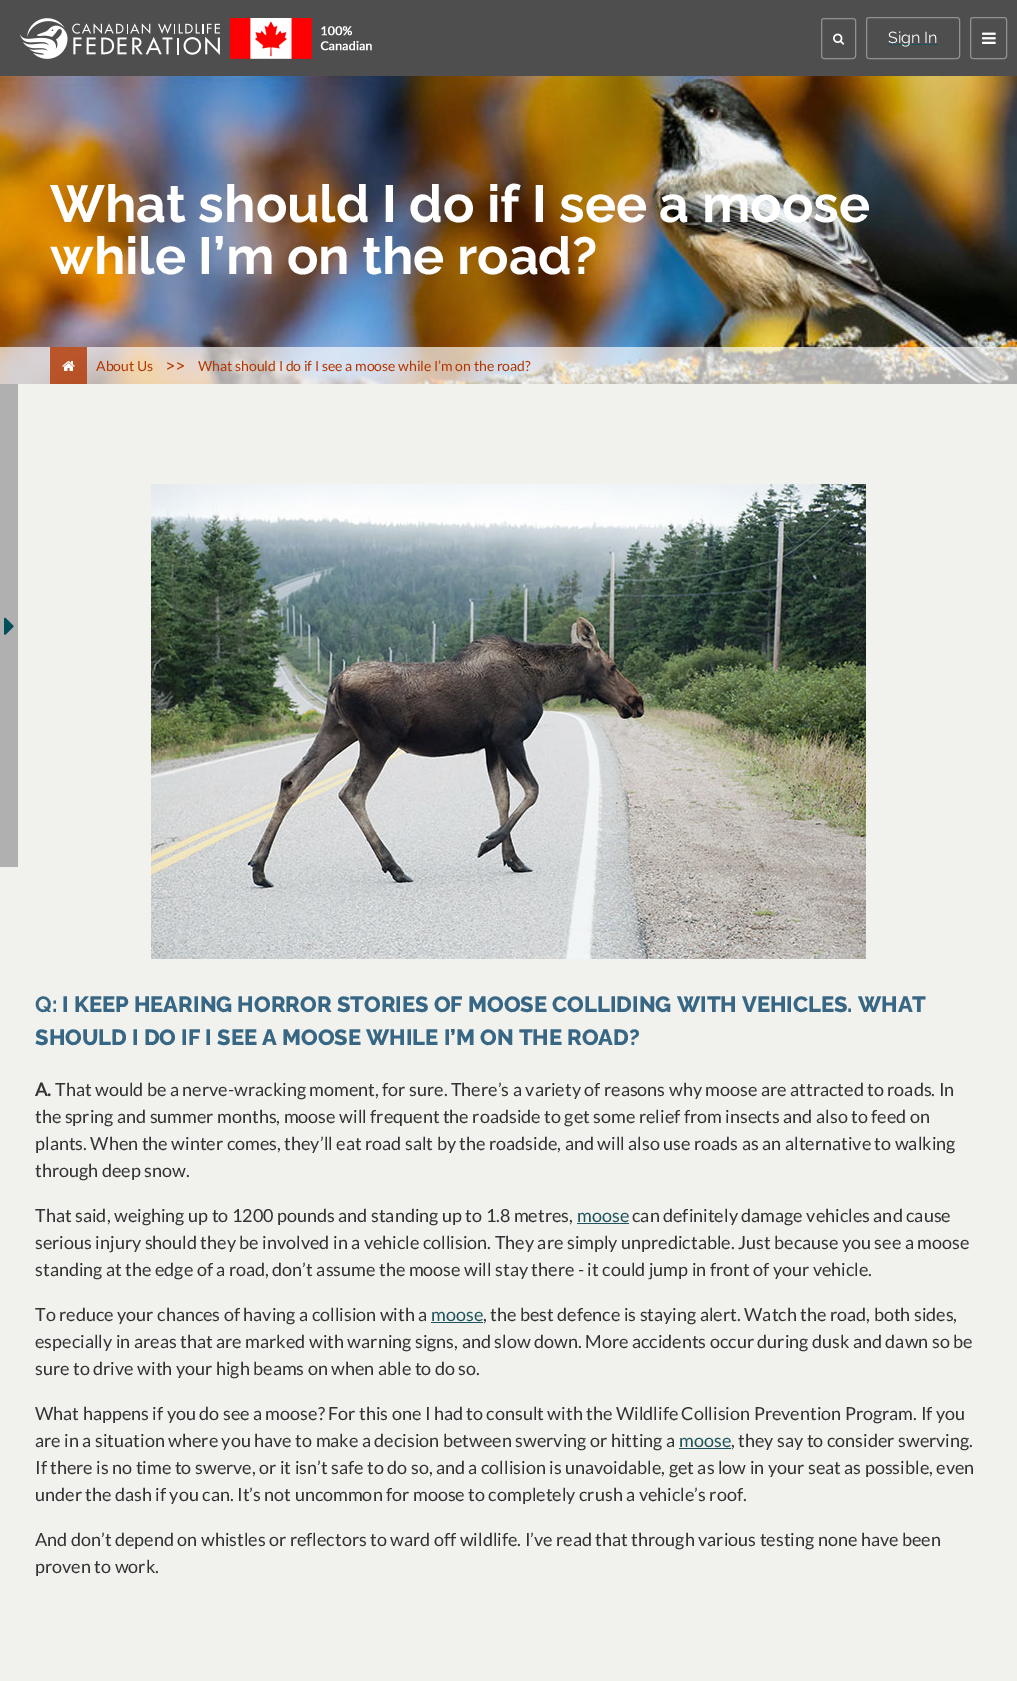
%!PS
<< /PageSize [1017 1681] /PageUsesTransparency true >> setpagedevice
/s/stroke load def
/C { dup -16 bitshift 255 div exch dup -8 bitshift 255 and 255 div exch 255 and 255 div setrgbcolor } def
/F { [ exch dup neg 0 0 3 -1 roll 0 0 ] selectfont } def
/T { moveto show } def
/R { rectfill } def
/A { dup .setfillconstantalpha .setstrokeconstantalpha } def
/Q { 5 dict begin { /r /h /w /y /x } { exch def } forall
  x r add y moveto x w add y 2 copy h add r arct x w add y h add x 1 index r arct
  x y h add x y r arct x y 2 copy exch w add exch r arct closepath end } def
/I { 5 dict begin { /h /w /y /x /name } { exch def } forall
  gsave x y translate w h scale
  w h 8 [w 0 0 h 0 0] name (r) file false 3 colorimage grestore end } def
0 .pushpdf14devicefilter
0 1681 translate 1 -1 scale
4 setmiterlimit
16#F1F2ED C
0 0 1017 1681 R
16#4E4E4E C
0 0 1017 76 R
(1.rgb) 20 18 200 41 I
(2.rgb) 230 18 142 41 I
16#909191 C
821.5 18.5 34 40 2.5 Q s
(3.rgb) 833 33 12 12 I
866.5 17.5 93 41 2.5 Q s
16#1F535D C
888 44 50 1 R
/Raleway-Regular 16 F
16#FFFFFF C
(Sign In) 888 43 T
16#909191 C
970.5 17.5 36 41 2.5 Q s
(4.rgb) 982 32 14 12 I
(5.rgb) 0 76 1017 308 I
/Raleway-Bold 52 F
16#FFFFFF C
(What should I do if I see a moose) 50 222 T
(while I’m on the road?) 50 274 T
0.67 A
0 347 1017 37 R
0.8 A
16#B23500 C
50 347 37 37 R
1 A
(6.rgb) 62 361 13 10 I
/Lato-Regular 14 F
(About Us) 96 371 T
/Lato-Regular 18 F
(>>) 165 372 T
/Lato-Regular 14 F
(What should I do if I see a moose while I’m on the road?) 198 371 T
16#B0B0B0 C
0 384 18 483 R
(7.rgb) 4 617 10 18 I
(8.rgb) 151 484 715 475 I
/Raleway-Bold 22 F
16#386785 C
(Q:) 35 1012 T
/Raleway-ExtraBold 22 F
(I KEEP HEARING HORROR STORIES OF MOOSE COLLIDING WITH VEHICLES. WHAT) 62 1012 T
(SHOULD I DO IF I SEE A MOOSE WHILE I’M ON THE ROAD?) 35 1045 T
/Lato-Bold 18 F
16#333333 C
(A.) 35 1096 T
/Lato-Regular 18 F
(That would be a nerve-wracking moment, for sure. There’s a variety of reasons why moose are attracted to roads. In) 55 1096 T
(the spring and summer months, moose will frequent the roadside to get some relief from insects and also to feed on) 35 1123 T
(plants. When the winter comes, they’ll eat road salt by the roadside, and will also use roads as an alternative to walking) 35 1150 T
(through deep snow.) 35 1177 T
(That said, weighing up to 1200 pounds and standing up to 1.8 metres,) 35 1222 T
16#1F535D C
(moose) 577 1222 T
577 1223 52 1 R
16#333333 C
(can definitely damage vehicles and cause) 632 1222 T
(serious injury should they be involved in a vehicle collision. They are simply unpredictable. Just because you see a moose) 35 1249 T
(standing at the edge of a road, don’t assume the moose will stay there - it could jump in front of your vehicle.) 35 1276 T
(To reduce your chances of having a collision with a) 35 1321 T
16#1F535D C
(moose) 431 1321 T
431 1322 52 1 R
16#333333 C
(, the best defence is staying alert. Watch the road, both sides,) 483 1321 T
(especially in areas that are marked with warning signs, and slow down. More accidents occur during dusk and dawn so be) 35 1348 T
(sure to drive with your high beams on when able to do so.) 35 1375 T
(What happens if you do see a moose? For this one I had to consult with the Wildlife Collision Prevention Program. If you) 35 1420 T
(are in a situation where you have to make a decision between swerving or hitting a) 35 1447 T
16#1F535D C
(moose) 679 1447 T
679 1448 52 1 R
16#333333 C
(, they say to consider swerving.) 731 1447 T
(If there is no time to swerve, or it isn’t safe to do so, and a collision is unavoidable, get as low in your seat as possible, even) 35 1474 T
(under the dash if you can. It’s not uncommon for moose to completely crush a vehicle’s roof.) 35 1501 T
(And don’t depend on whistles or reflectors to ward off wildlife. I’ve read that through various testing none have been) 35 1546 T
(proven to work.) 35 1573 T
.poppdf14devicefilter showpage
